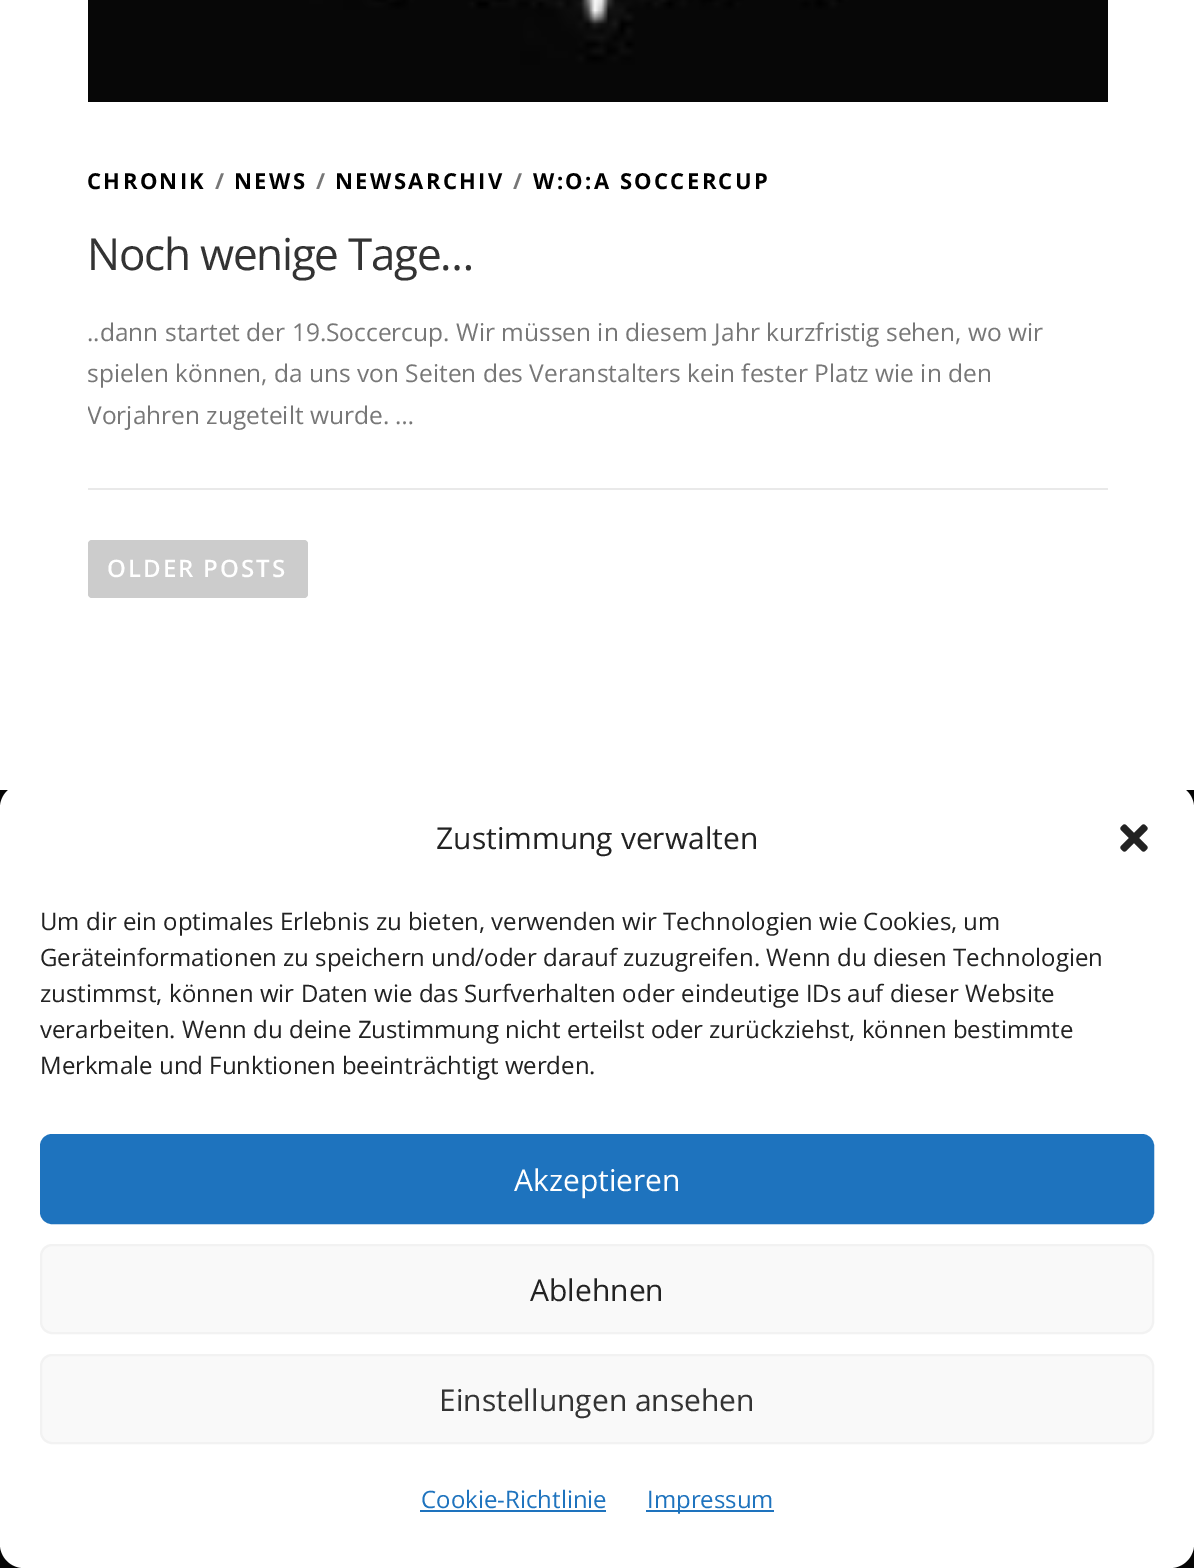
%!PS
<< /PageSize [1194 1568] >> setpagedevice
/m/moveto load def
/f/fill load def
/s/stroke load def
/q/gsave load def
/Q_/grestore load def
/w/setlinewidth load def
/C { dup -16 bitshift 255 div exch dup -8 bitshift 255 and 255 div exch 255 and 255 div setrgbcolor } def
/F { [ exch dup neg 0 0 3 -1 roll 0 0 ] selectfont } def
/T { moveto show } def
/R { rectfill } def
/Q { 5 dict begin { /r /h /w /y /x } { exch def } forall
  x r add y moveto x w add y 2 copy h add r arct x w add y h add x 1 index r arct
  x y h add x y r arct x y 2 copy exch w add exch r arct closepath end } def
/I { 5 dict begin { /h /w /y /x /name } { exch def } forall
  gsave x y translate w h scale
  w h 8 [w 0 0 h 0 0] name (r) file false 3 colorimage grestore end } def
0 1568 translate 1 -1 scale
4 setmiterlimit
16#FFFFFF C
0 0 1194 1568 R
16#E9E9E9 C
88 488 1020 2 R
(1.rgb) 88 0 1020 102 I
/OpenSans-Bold 22 F
16#000000 C
87 189 m 2.4 0 (CHRONIK) ashow
16#777777 C
215 189 m 2.4 0 (/) ashow
16#000000 C
234 189 m 2.4 0 (NEWS) ashow
16#777777 C
316 189 m 2.4 0 (/) ashow
16#000000 C
335 189 m 2.4 0 (NEWSARCHIV) ashow
16#777777 C
513 189 m 2.4 0 (/) ashow
16#000000 C
533 189 m 2.4 0 (W:O:A SOCCERCUP) ashow
/OpenSans-Regular 44 F
16#333333 C
87 270 m -1.25 0 (Noch wenige Tage…) ashow
/OpenSans-Regular 24.5 F
16#777777 C
(..dann startet der 19.Soccercup. Wir müssen in diesem Jahr kurzfristig sehen, wo wir) 87 341 T
(spielen können, da uns von Seiten des Veranstalters kein fester Platz wie in den) 87 382 T
q
88 162 1020 276 rectclip
(Vorjahren zugeteilt wurde. …) 87 424 T
Q_
16#CCCCCC C
88 540 220 58 4 Q f
/OpenSans-SemiBold 24 F
16#FFFFFF C
107 577 m 2 0 (OLDER POSTS) ashow
16#050505 C
0 790 1194 778 R
16#FFFFFF C
0 784 1194 784 24 Q f
/OpenSans-Regular 30 F
16#222222 C
(Zustimmung verwalten) 436 849 T
(2.rgb) 1120 824 28 28 I
/OpenSans-Regular 24 F
(Um dir ein optimales Erlebnis zu bieten, verwenden wir Technologien wie Cookies, um) 40 930 T
(Geräteinformationen zu speichern und/oder darauf zuzugreifen. Wenn du diesen Technologien) 40 966 T
(zustimmst, können wir Daten wie das Surfverhalten oder eindeutige IDs auf dieser Website) 40 1002 T
(verarbeiten. Wenn du deine Zustimmung nicht erteilst oder zurückziehst, können bestimmte) 40 1038 T
(Merkmale und Funktionen beeinträchtigt werden.) 40 1074 T
16#1E73BE C
41 1135 1112 88 11 Q q f Q_
2 w
s
/OpenSans-Regular 30 F
16#FFFFFF C
(Akzeptieren) 514 1191 T
16#F9F9F9 C
41 1245 1112 88 11 Q q f Q_
16#F2F2F2 C
s
16#222222 C
(Ablehnen) 530 1301 T
16#F9F9F9 C
41 1355 1112 88 11 Q q f Q_
16#F2F2F2 C
s
16#333333 C
(Einstellungen ansehen) 439 1411 T
/OpenSans-Regular 24 F
16#1E73BE C
(Cookie-Richtlinie) 421 1508 T
420 1510 186 2 R
646 1510 128 2 R
(Impressum) 647 1508 T
showpage
